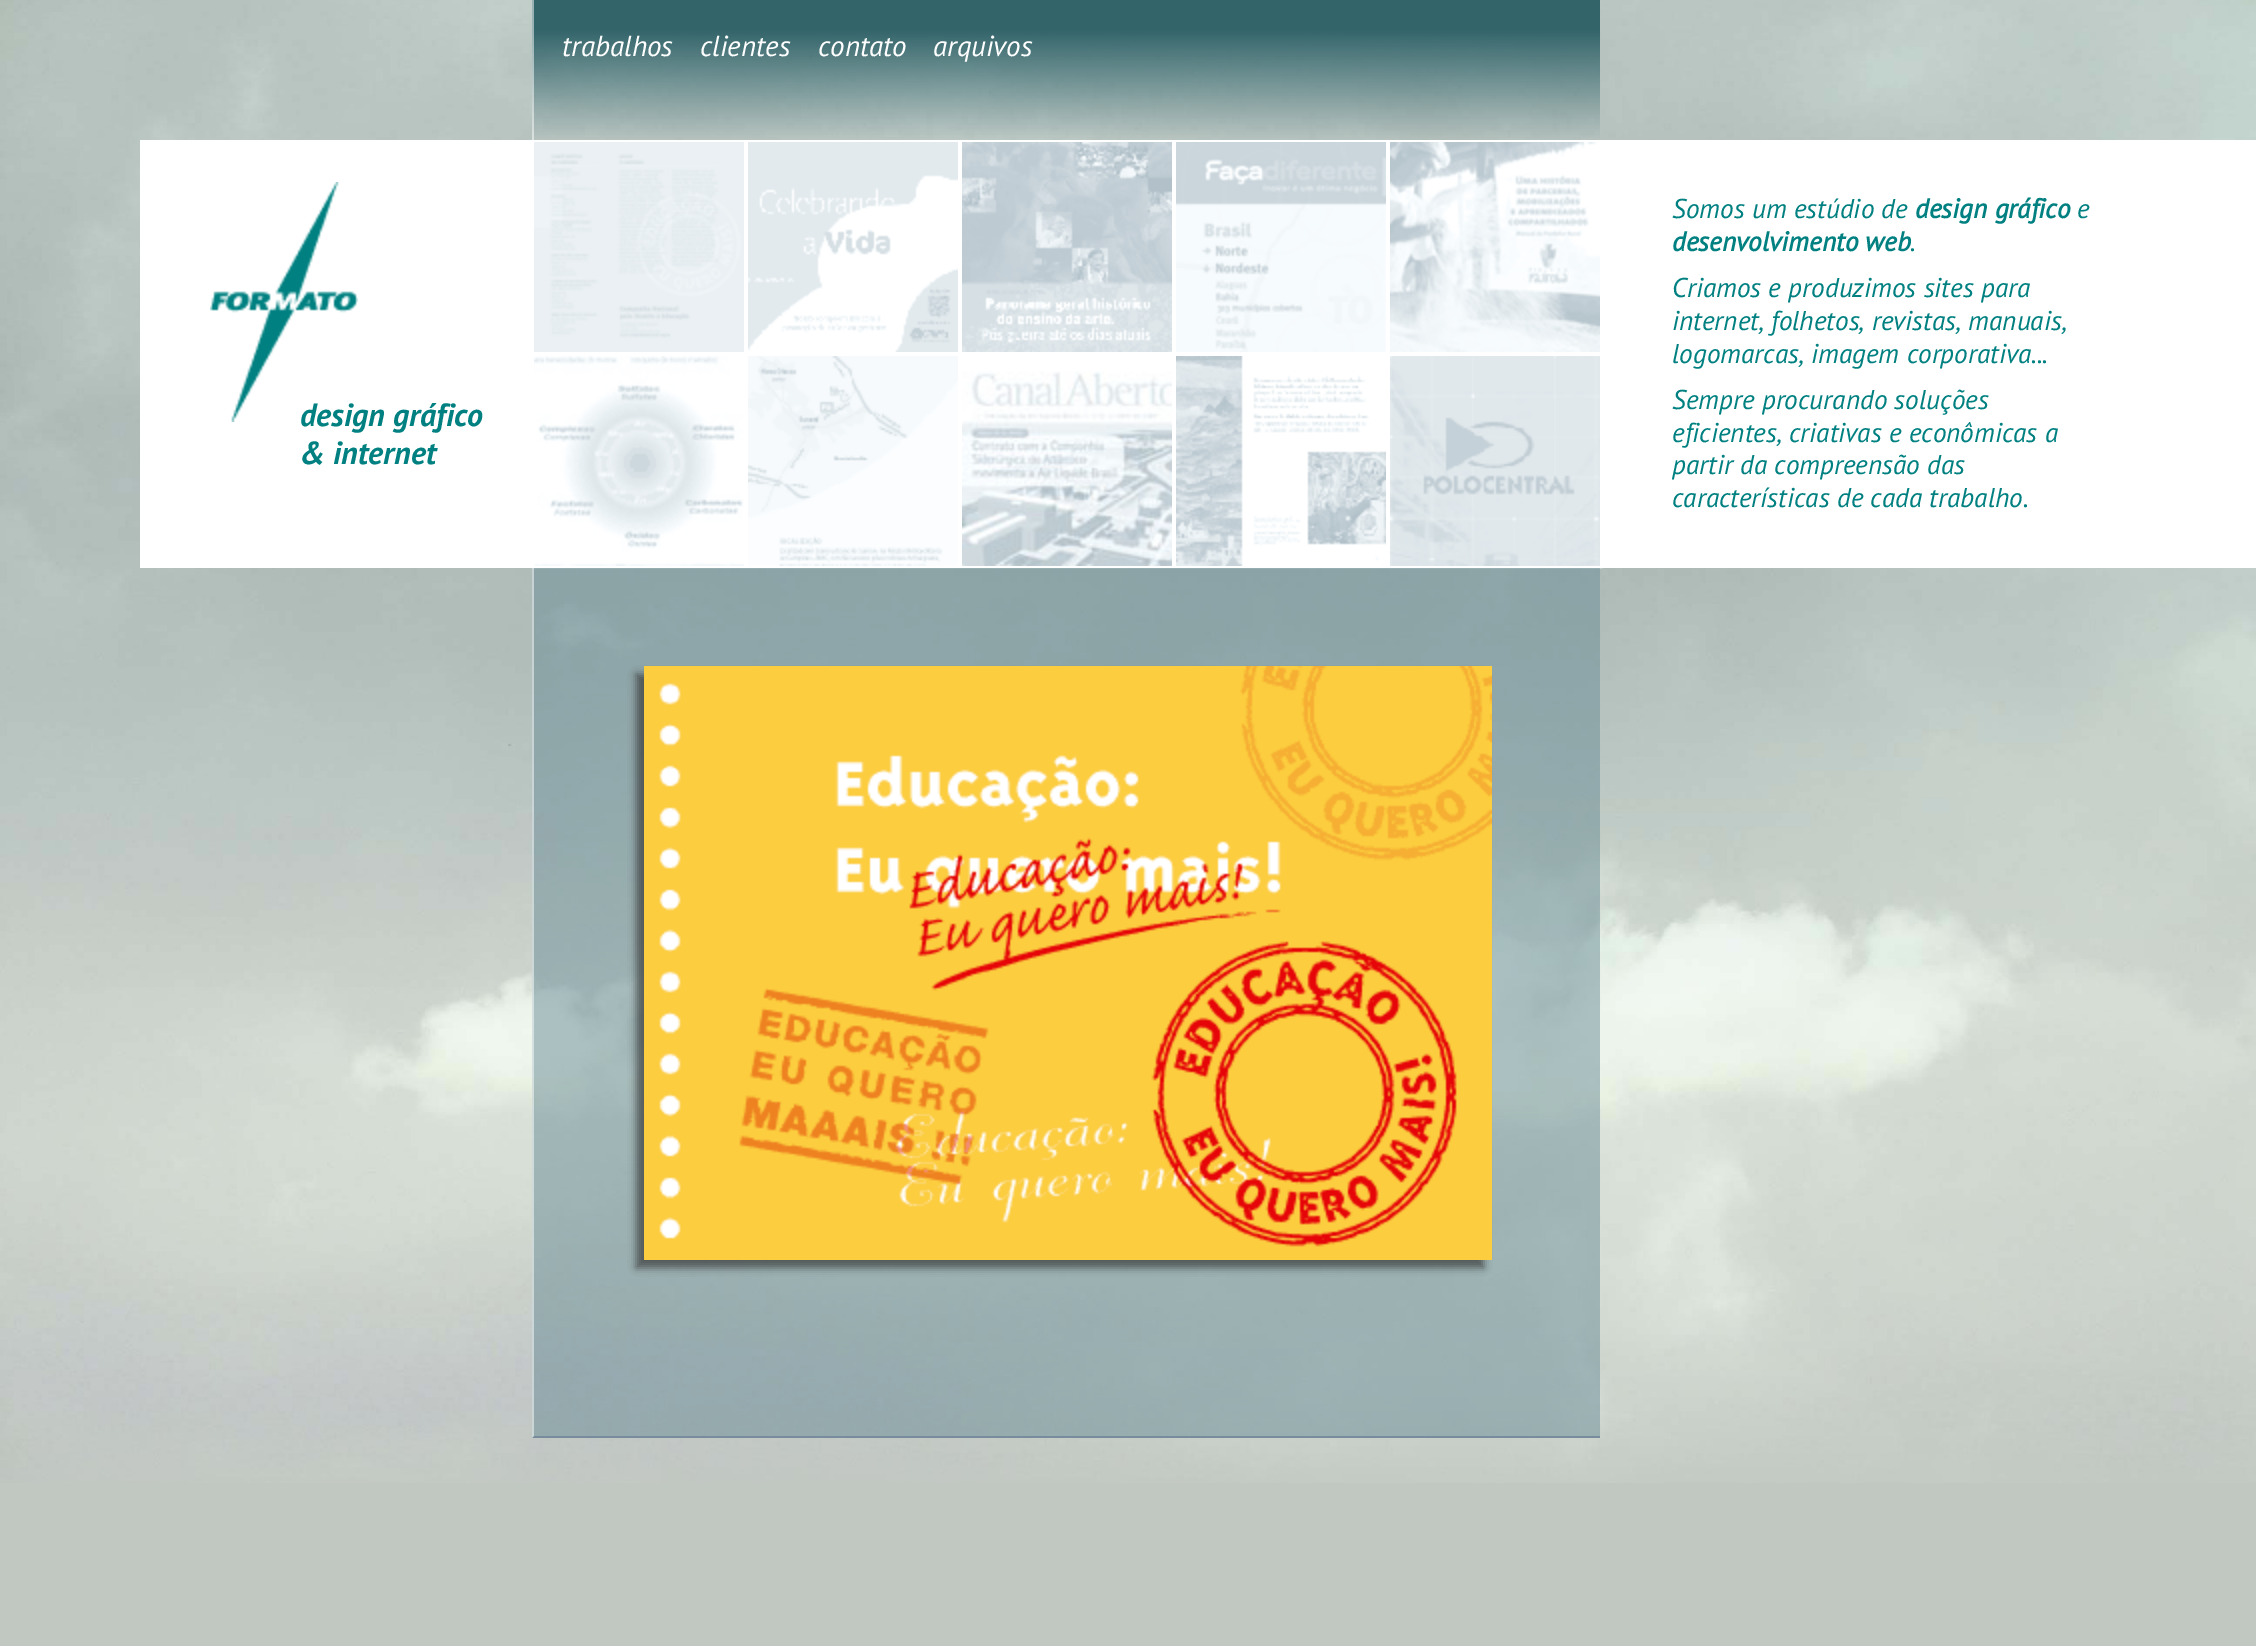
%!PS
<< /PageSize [2256 1646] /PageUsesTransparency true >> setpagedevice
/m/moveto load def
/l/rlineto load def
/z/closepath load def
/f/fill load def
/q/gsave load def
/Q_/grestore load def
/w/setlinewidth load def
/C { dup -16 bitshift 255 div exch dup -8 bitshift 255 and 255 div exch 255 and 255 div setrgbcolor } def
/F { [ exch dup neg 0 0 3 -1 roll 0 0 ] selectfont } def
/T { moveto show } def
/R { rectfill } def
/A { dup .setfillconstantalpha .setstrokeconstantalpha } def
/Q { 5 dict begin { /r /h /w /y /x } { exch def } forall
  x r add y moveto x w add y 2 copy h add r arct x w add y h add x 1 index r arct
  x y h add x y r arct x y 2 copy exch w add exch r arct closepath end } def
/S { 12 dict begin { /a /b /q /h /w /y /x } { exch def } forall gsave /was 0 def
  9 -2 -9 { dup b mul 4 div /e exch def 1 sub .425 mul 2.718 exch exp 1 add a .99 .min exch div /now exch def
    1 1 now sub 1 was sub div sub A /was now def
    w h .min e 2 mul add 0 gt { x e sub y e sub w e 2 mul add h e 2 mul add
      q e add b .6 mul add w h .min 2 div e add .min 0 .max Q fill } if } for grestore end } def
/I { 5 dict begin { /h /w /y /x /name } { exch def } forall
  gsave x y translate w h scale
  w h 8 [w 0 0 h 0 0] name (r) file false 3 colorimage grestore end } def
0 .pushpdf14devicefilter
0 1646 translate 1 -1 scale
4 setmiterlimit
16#C1C8C1 C
0 0 2256 1646 R
(1.rgb) 0 0 2256 1483 I
0.5 A
16#FFFFFF C
532 0 2 140 R
/PTSans-Italic 29 F
1 A
(trabalhos) 562 56 T
(clientes) 700 56 T
(contato) 818 56 T
(arquivos) 933 56 T
140 140 392 428 R
(2.rgb) 210 182 148 240 I
/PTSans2-BoldItalic 32 F
16#008080 C
(design gráfico) 300 426 T
(& internet) 300 464 T
16#FFFFFF C
2 w
533 141 212 212 rectstroke
(3.rgb) 534 142 210 210 I
747 141 212 212 rectstroke
(4.rgb) 748 142 210 210 I
961 141 212 212 rectstroke
(5.rgb) 962 142 210 210 I
1175 141 212 212 rectstroke
(6.rgb) 1176 142 210 210 I
1389 141 212 212 rectstroke
(7.rgb) 1390 142 210 210 I
533 355 212 212 rectstroke
(8.rgb) 534 356 210 210 I
747 355 212 212 rectstroke
(9.rgb) 748 356 210 210 I
961 355 212 212 rectstroke
(10.rgb) 962 356 210 210 I
1175 355 212 212 rectstroke
(11.rgb) 1176 356 210 210 I
1389 355 212 212 rectstroke
(12.rgb) 1390 356 210 210 I
1602 140 518 428 R
/PTSans-Italic 27.25 F
16#008080 C
(Somos um estúdio de) 1672 218 T
/PTSans-BoldItalic 27.25 F
(design gráfico) 1915 218 T
/PTSans-Italic 27.25 F
(e) 2077 218 T
/PTSans-BoldItalic 27.25 F
(desenvolvimento web) 1672 251 T
/PTSans-Italic 27.25 F
(.) 1910 251 T
(Criamos e produzimos sites para) 1672 297 T
(internet, folhetos, revistas, manuais,) 1672 330 T
(logomarcas, imagem corporativa...) 1672 363 T
(Sempre procurando soluções) 1672 409 T
(eficientes, criativas e econômicas a) 1672 442 T
(partir da compreensão das) 1672 474 T
(características de cada trabalho.) 1672 507 T
0.5 A
16#698C96 C
532 568 1068 870 R
1 A
16#788C9E C
1600 1438 m -1068 0 l 2 -2 l 1066 0 l z f
0.5 A
16#FFFFFF C
532 1438 m 0 -870 l 2 0 l 0 868 l z f
q
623 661 m 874 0 l 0 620 l -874 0 l z 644 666 m 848 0 l 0 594 l -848 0 l z eoclip newpath
1 A
16#333333 C
636 674 848 594 0 4 .69 S
Q_
1 A
(13.rgb) 644 666 848 594 I
.poppdf14devicefilter showpage
